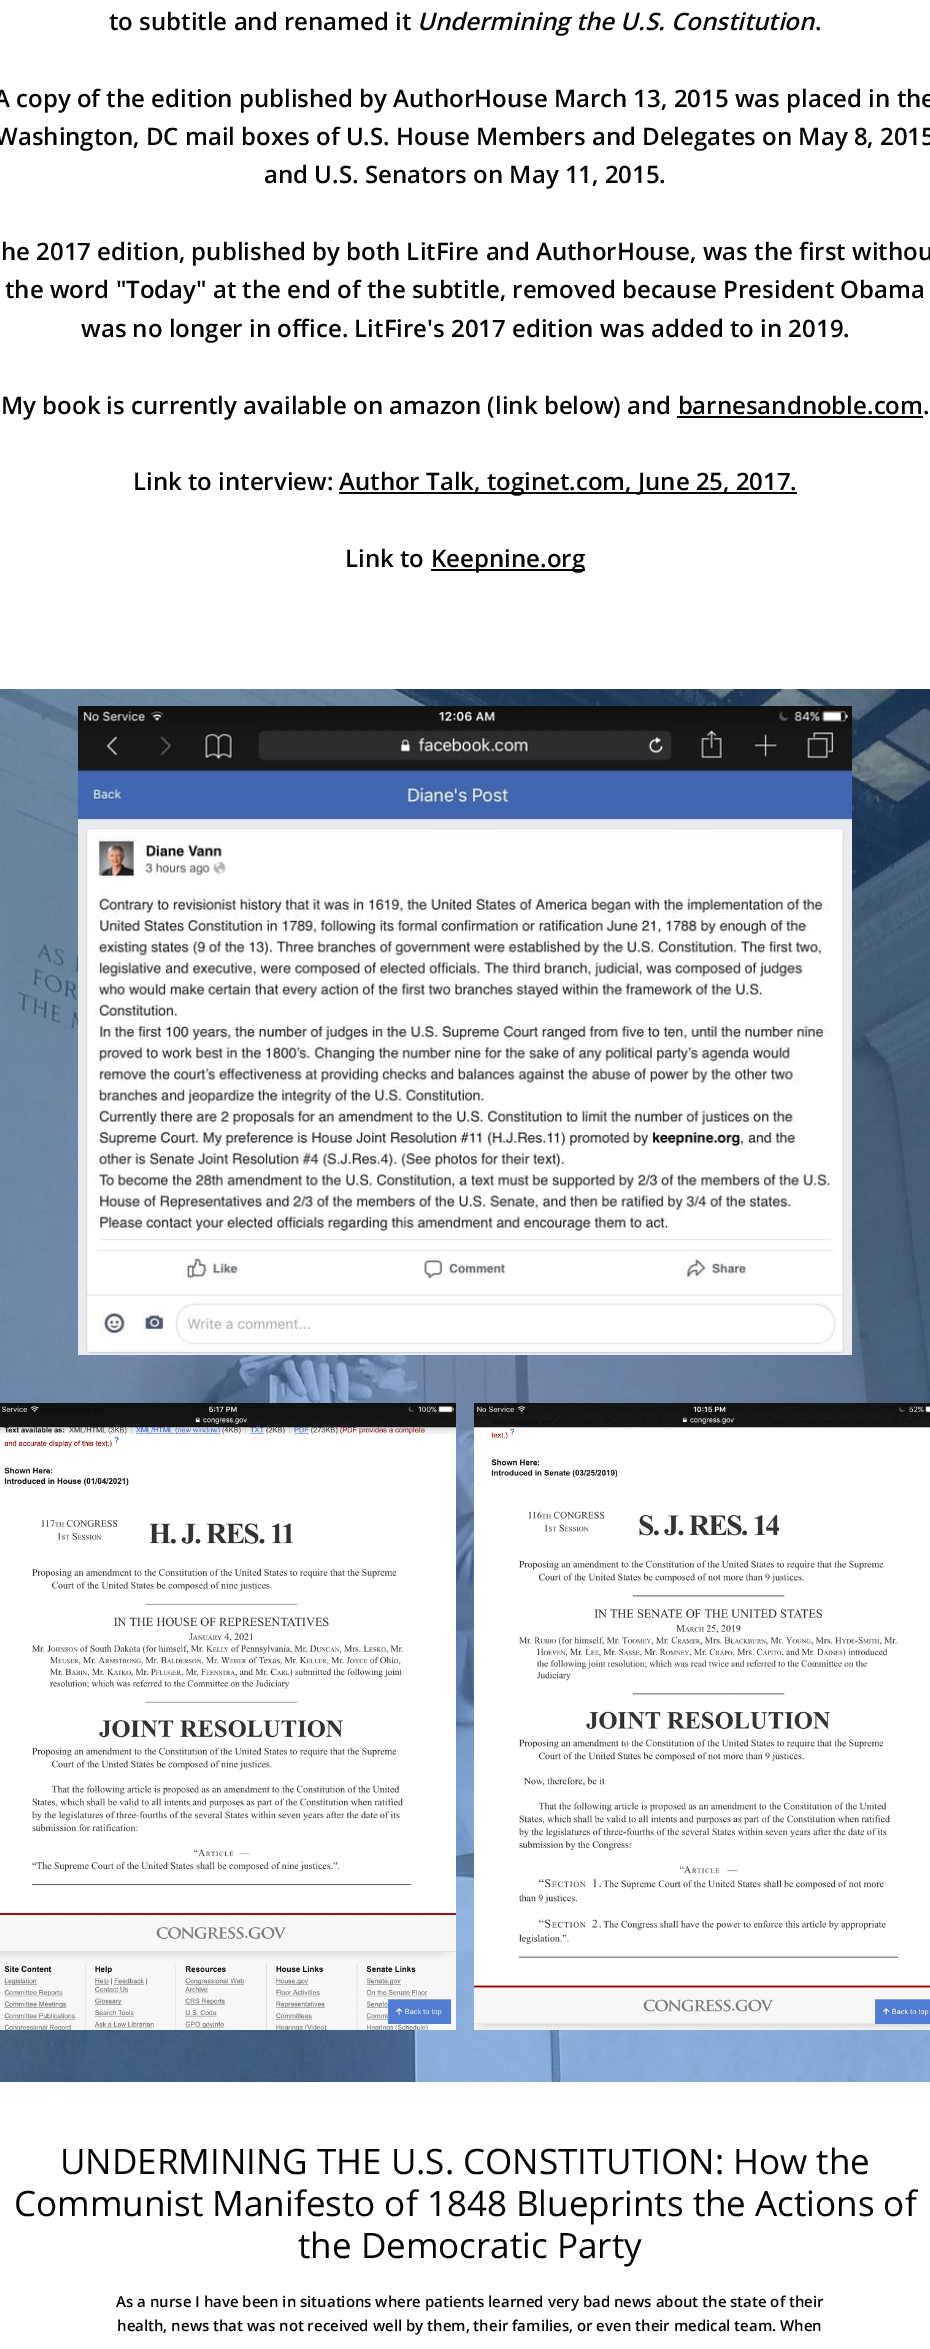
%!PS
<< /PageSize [930 2349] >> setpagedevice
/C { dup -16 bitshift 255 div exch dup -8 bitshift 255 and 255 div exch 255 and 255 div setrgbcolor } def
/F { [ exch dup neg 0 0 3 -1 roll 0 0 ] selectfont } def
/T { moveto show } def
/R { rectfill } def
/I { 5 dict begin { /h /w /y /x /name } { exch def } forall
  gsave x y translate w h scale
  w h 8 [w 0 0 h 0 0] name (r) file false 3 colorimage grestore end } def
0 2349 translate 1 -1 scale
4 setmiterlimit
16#FFFFFF C
0 0 930 2349 R
/OpenSans-SemiBold 24 F
16#050505 C
(to subtitle and renamed it) 109 30 T
/OpenSans-SemiBoldItalic 24 F
(Undermining the U.S. Constitution) 417 30 T
/OpenSans-SemiBold 24 F
(.) 815 30 T
(A copy of the edition published by AuthorHouse March 13, 2015 was placed in the) -6 107 T
(Washington, DC mail boxes of U.S. House Members and Delegates on May 8, 2015) -5 145 T
(and U.S. Senators on May 11, 2015.) 264 183 T
(he 2017 edition, published by both LitFire and AuthorHouse, was the first withou) 1 260 T
(the word "Today" at the end of the subtitle, removed because President Obama) 5 298 T
(was no longer in office. LitFire's 2017 edition was added to in 2019.) 81 337 T
(My book is currently available on amazon \(link below\) and barnesandnoble.com.) 1 414 T
677 416 246 2 R
(Link to interview:) 133 490 T
339 492 458 2 R
(Author Talk, toginet.com, June 25, 2017.) 339 490 T
(Link to) 345 567 T
431 569 154 2 R
(Keepnine.org) 431 567 T
(1.rgb) 0 689 930 1393 I
(2.rgb) 78 706 774 649 I
(3.rgb) 0 1403 456 627 I
(4.rgb) 474 1403 456 627 I
/OpenSans-Regular 35 F
(UNDERMINING THE U.S. CONSTITUTION: How the) 60 2174 T
(Communist Manifesto of 1848 Blueprints the Actions of) 14 2216 T
(the Democratic Party) 298 2258 T
/OpenSans-SemiBold 15 F
(As a nurse I have been in situations where patients learned very bad news about the state of their) 116 2307 T
(health, news that was not received well by them, their families, or even their medical team. When) 117 2331 T
showpage
